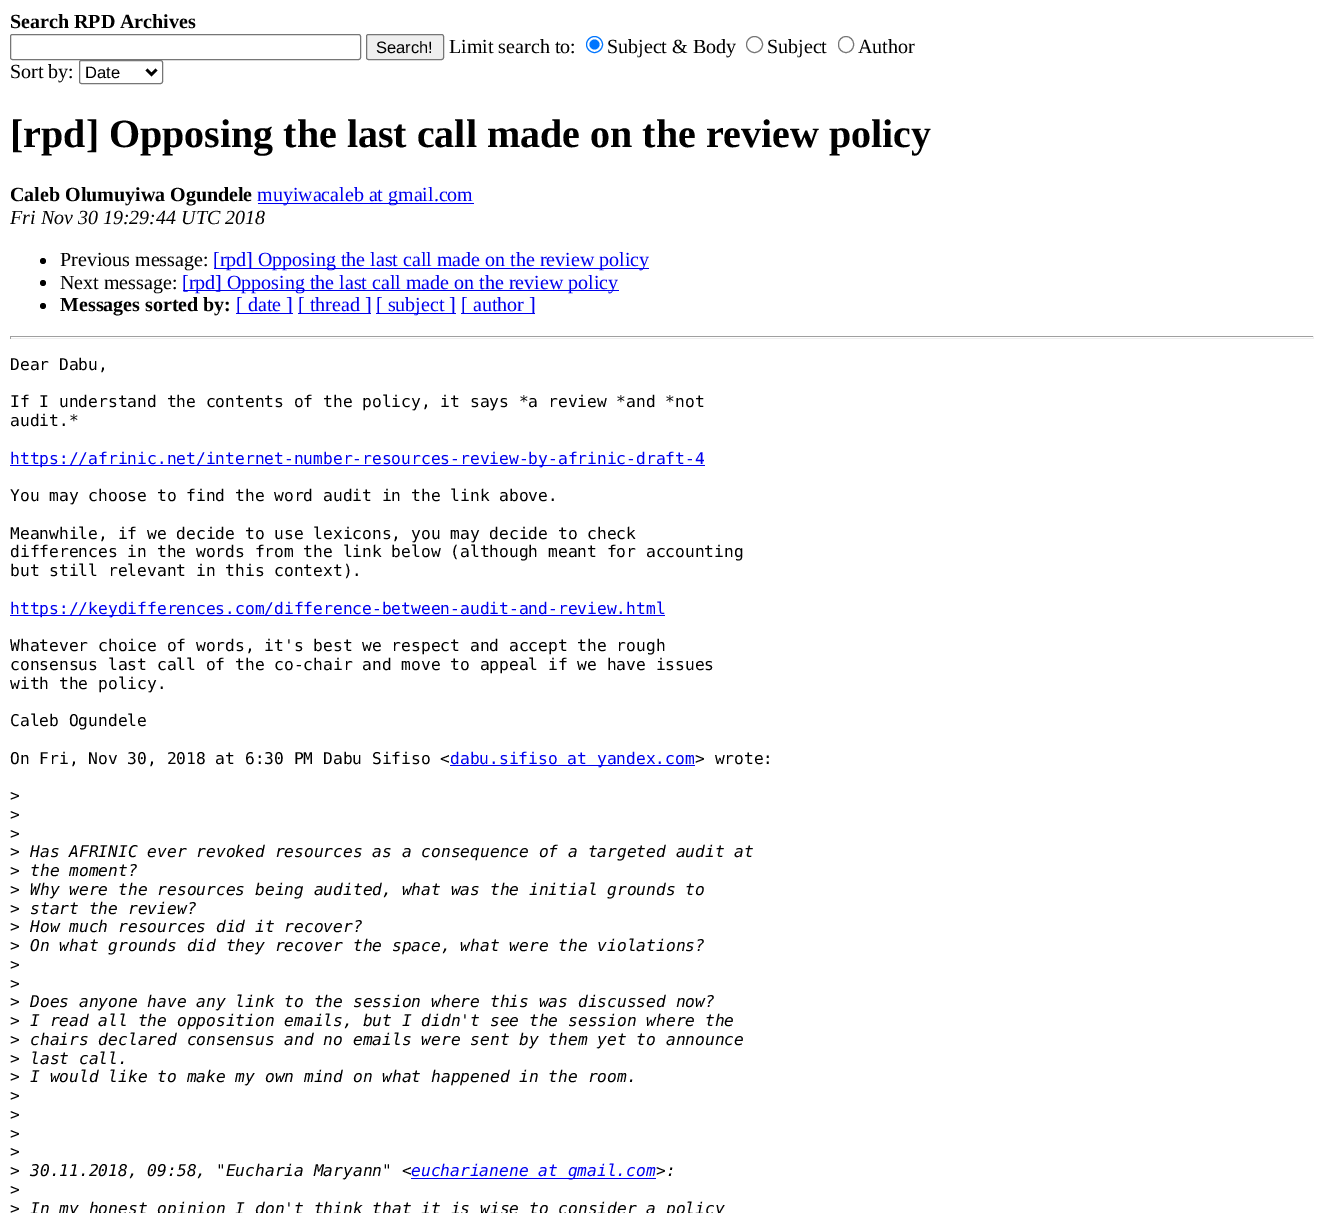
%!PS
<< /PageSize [1323 1213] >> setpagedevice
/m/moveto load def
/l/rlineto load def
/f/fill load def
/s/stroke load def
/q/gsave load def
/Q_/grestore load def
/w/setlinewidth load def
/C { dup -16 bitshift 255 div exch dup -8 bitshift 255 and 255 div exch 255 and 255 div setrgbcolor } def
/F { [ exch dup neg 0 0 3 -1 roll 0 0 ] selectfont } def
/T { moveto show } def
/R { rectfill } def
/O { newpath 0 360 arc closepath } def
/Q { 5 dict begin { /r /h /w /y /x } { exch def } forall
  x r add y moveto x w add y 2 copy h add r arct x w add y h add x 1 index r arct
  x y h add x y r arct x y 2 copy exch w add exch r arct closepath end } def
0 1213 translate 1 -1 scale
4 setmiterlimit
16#FFFFFF C
0 0 1323 1213 R
/LiberationSerif-Bold 20 F
16#000000 C
(Search RPD Archives) 10 28 T
16#767676 C
10.5 34.5 350 25 2 Q s
16#EFEFEF C
366.5 34.5 77 25 2 Q q f Q_
16#767676 C
s
/LiberationSans-Regular 16.5 F
16#000000 C
(Search!) 376 53 T
/LiberationSerif-Regular 20 F
(Limit search to:) 449 53 T
16#0075FF C
594.5 44.5 8 O s
594.5 44.5 5 O f
16#000000 C
(Subject & Body) 607 53 T
16#767676 C
754.5 44.5 8 O s
16#000000 C
(Subject) 767 53 T
16#767676 C
838.5 36.5 15 16 7.5 Q s
16#000000 C
(Author) 858 53 T
(Sort by:) 10 78 T
16#767676 C
79.5 60.5 83 23 2 Q s
16#000000 C
2.5 w
146.5 69.5 m 5 5 l 5 -5 l s
/LiberationSans-Regular 16.5 F
(Date) 85 78 T
/LiberationSerif-Bold 40 F
([rpd] Opposing the last call made on the review policy) 10 147 T
/LiberationSerif-Bold 20 F
(Caleb Olumuyiwa Ogundele) 10 201 T
16#0000EE C
258 203 216 1 R
/LiberationSerif-Regular 20 F
(muyiwacaleb at gmail.com) 257 201 T
/LiberationSerif-Italic 20 F
16#000000 C
(Fri Nov 30 19:29:44 UTC 2018) 10 224 T
43 261 3 O f
/LiberationSerif-Regular 20 F
(Previous message:) 60 266 T
16#0000EE C
214 268 435 1 R
([rpd] Opposing the last call made on the review policy) 213 266 T
16#000000 C
43 283 3 O f
(Next message:) 60 289 T
16#0000EE C
183 290 436 1 R
([rpd] Opposing the last call made on the review policy) 182 289 T
16#000000 C
43 306 3 O f
/LiberationSerif-Bold 20 F
(Messages sorted by:) 60 311 T
16#0000EE C
236 313 57 1 R
/LiberationSerif-Regular 20 F
([ date ]) 236 311 T
298 313 73 1 R
([ thread ]) 298 311 T
376 313 80 1 R
([ subject ]) 376 311 T
461 313 74 1 R
([ author ]) 461 311 T
16#9F9F9F C
10 336 1304 1 R
16#EEEEEE C
1313 336 1 3 R
10 338 1304 1 R
16#9F9F9F C
10 336 1 3 R
/DejaVuSansMono-Regular 16.25 F
16#000000 C
(Dear Dabu,) 10 370 T
(If I understand the contents of the policy, it says *a review *and *not) 10 407 T
(audit.*) 10 426 T
16#0000EE C
10 465 695 1 R
(https://afrinic.net/internet-number-resources-review-by-afrinic-draft-4) 10 464 T
16#000000 C
(You may choose to find the word audit in the link above.) 10 501 T
(Meanwhile, if we decide to use lexicons, you may decide to check) 10 539 T
(differences in the words from the link below \(although meant for accounting) 10 557 T
(but still relevant in this context\).) 10 576 T
16#0000EE C
10 615 655 1 R
(https://keydifferences.com/difference-between-audit-and-review.html) 10 614 T
16#000000 C
(Whatever choice of words, it's best we respect and accept the rough) 10 651 T
(consensus last call of the co-chair and move to appeal if we have issues) 10 670 T
(with the policy.) 10 689 T
(Caleb Ogundele) 10 726 T
(On Fri, Nov 30, 2018 at 6:30 PM Dabu Sifiso <) 10 764 T
16#0000EE C
450 765 245 1 R
(dabu.sifiso at yandex.com) 450 764 T
16#000000 C
(> wrote:) 695 764 T
(>) 10 801 T
(>) 10 820 T
(>) 10 839 T
(>) 10 857 T
/DejaVuSansMono-Italic 16.25 F
(Has AFRINIC ever revoked resources as a consequence of a targeted audit at) 30 857 T
/DejaVuSansMono-Regular 16.25 F
(>) 10 876 T
/DejaVuSansMono-Italic 16.25 F
(the moment?) 30 876 T
/DejaVuSansMono-Regular 16.25 F
(>) 10 895 T
/DejaVuSansMono-Italic 16.25 F
(Why were the resources being audited, what was the initial grounds to) 30 895 T
/DejaVuSansMono-Regular 16.25 F
(>) 10 914 T
/DejaVuSansMono-Italic 16.25 F
(start the review?) 30 914 T
/DejaVuSansMono-Regular 16.25 F
(>) 10 932 T
/DejaVuSansMono-Italic 16.25 F
(How much resources did it recover?) 30 932 T
/DejaVuSansMono-Regular 16.25 F
(>) 10 951 T
/DejaVuSansMono-Italic 16.25 F
(On what grounds did they recover the space, what were the violations?) 30 951 T
/DejaVuSansMono-Regular 16.25 F
(>) 10 970 T
(>) 10 989 T
(>) 10 1007 T
/DejaVuSansMono-Italic 16.25 F
(Does anyone have any link to the session where this was discussed now?) 30 1007 T
/DejaVuSansMono-Regular 16.25 F
(>) 10 1026 T
/DejaVuSansMono-Italic 16.25 F
(I read all the opposition emails, but I didn't see the session where the) 30 1026 T
/DejaVuSansMono-Regular 16.25 F
(>) 10 1045 T
/DejaVuSansMono-Italic 16.25 F
(chairs declared consensus and no emails were sent by them yet to announce) 30 1045 T
/DejaVuSansMono-Regular 16.25 F
(>) 10 1064 T
/DejaVuSansMono-Italic 16.25 F
(last call.) 30 1064 T
/DejaVuSansMono-Regular 16.25 F
(>) 10 1082 T
/DejaVuSansMono-Italic 16.25 F
(I would like to make my own mind on what happened in the room.) 30 1082 T
/DejaVuSansMono-Regular 16.25 F
(>) 10 1101 T
(>) 10 1120 T
(>) 10 1139 T
(>) 10 1157 T
(>) 10 1176 T
/DejaVuSansMono-Italic 16.25 F
(30.11.2018, 09:58, "Eucharia Maryann" <) 30 1176 T
16#0000EE C
411 1178 245 1 R
(eucharianene at gmail.com) 411 1176 T
16#000000 C
(>:) 656 1176 T
/DejaVuSansMono-Regular 16.25 F
(>) 10 1195 T
(>) 10 1214 T
/DejaVuSansMono-Italic 16.25 F
(In my honest opinion I don't think that it is wise to consider a policy) 30 1214 T
showpage
